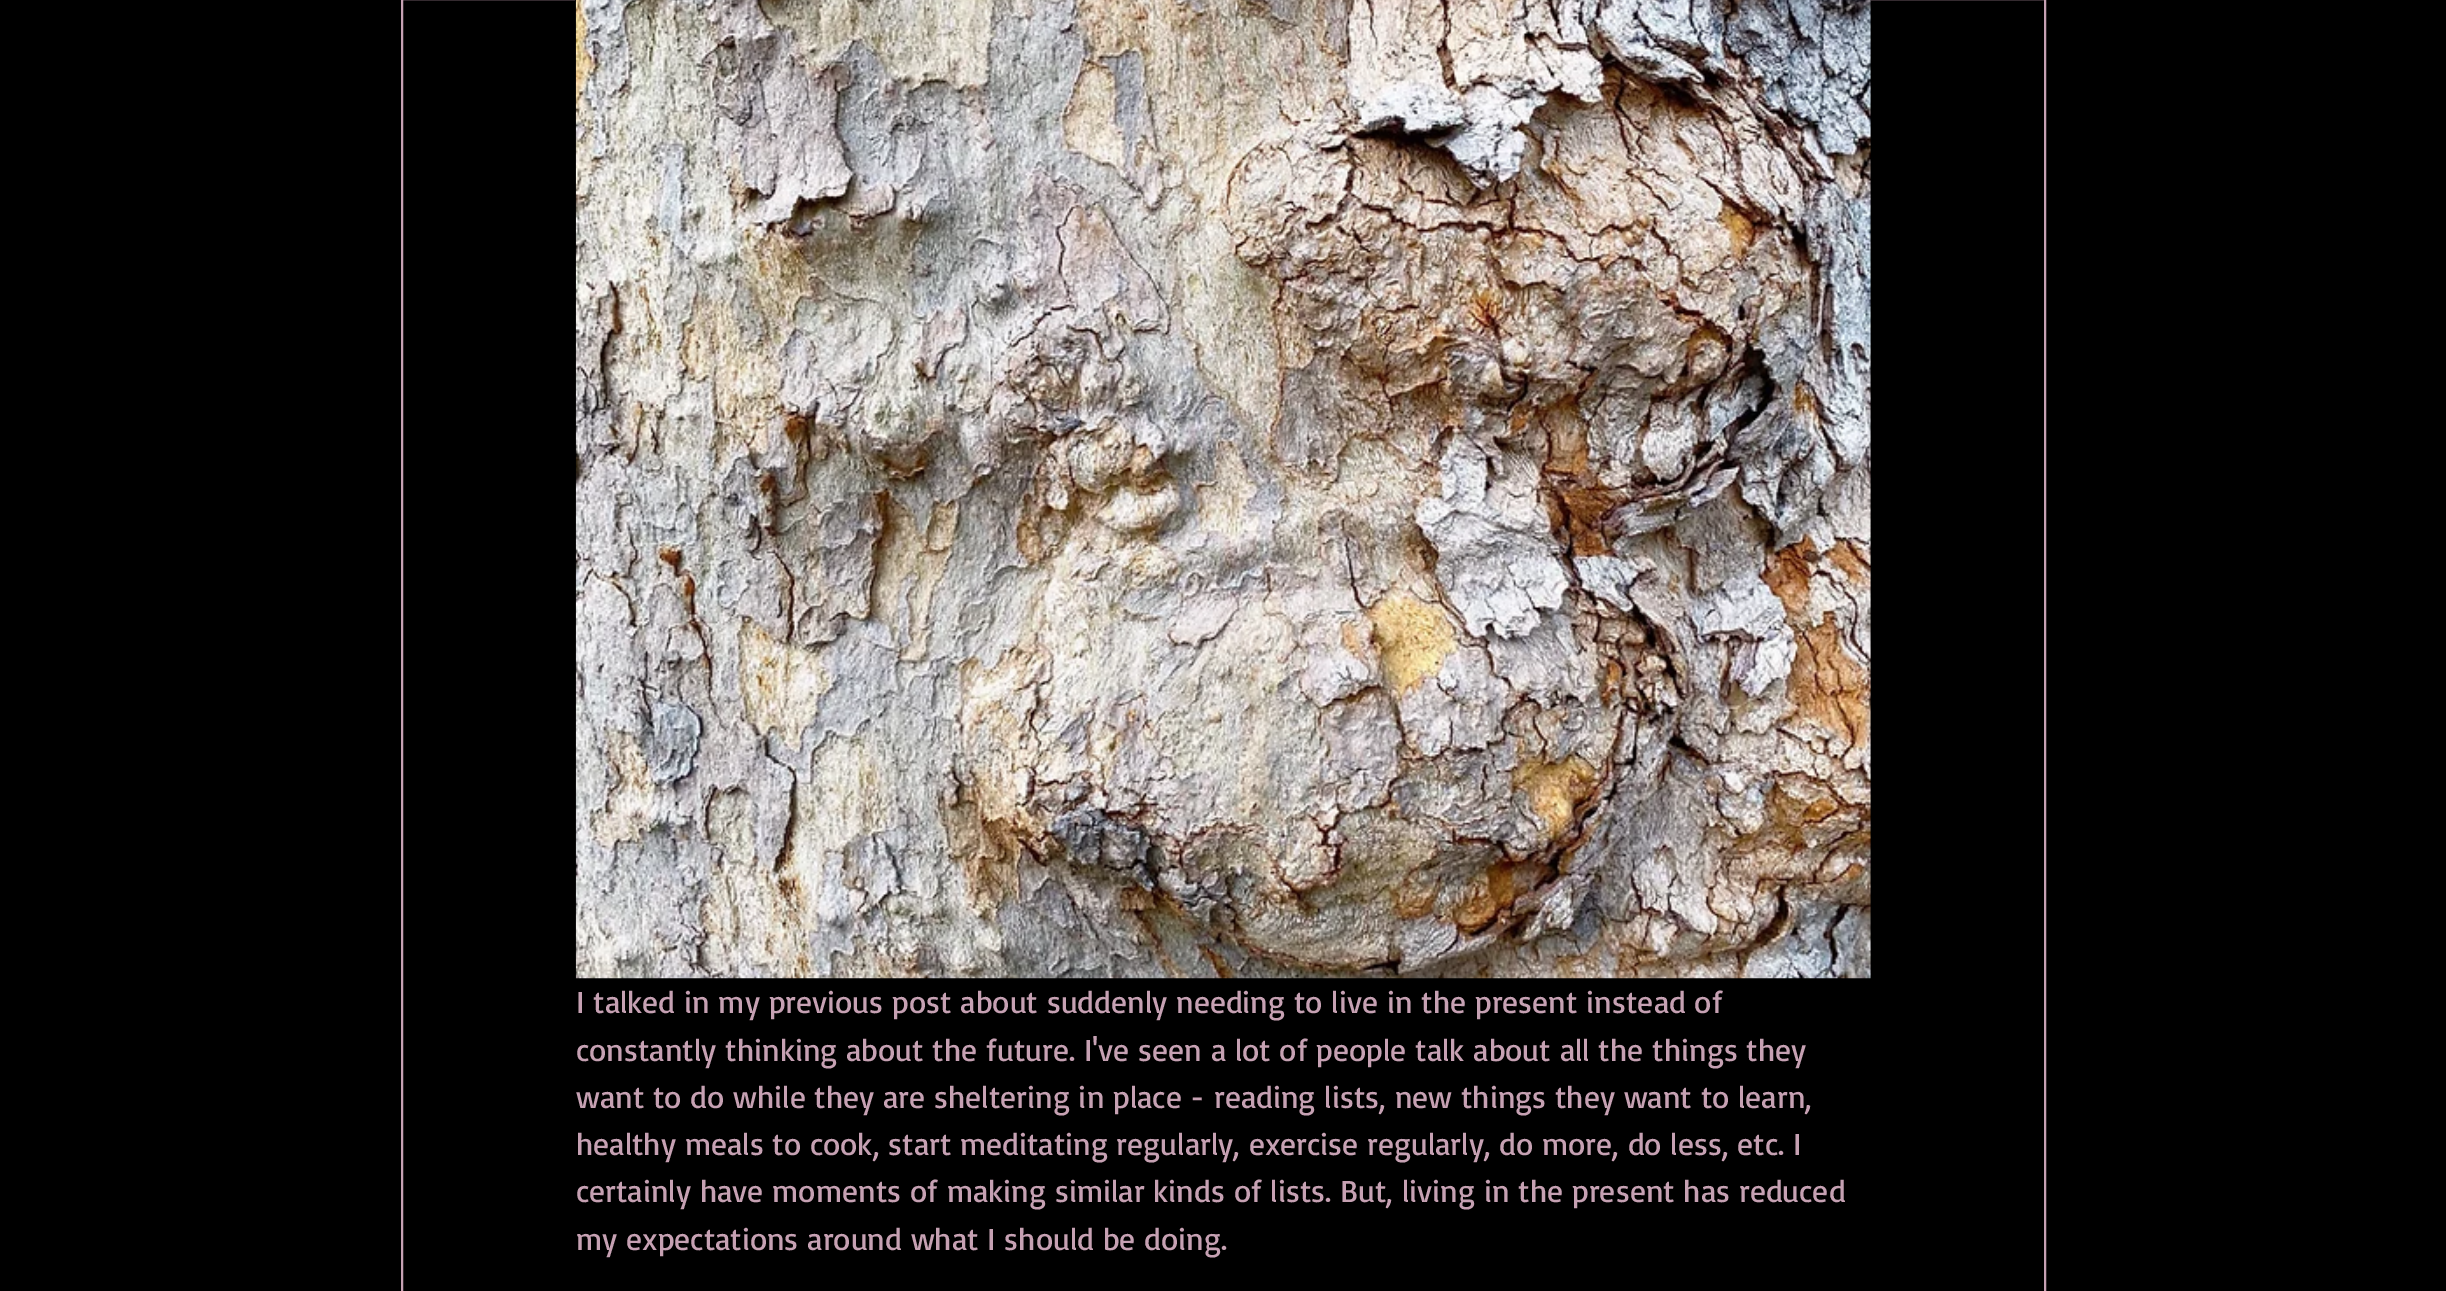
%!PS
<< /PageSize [2446 1291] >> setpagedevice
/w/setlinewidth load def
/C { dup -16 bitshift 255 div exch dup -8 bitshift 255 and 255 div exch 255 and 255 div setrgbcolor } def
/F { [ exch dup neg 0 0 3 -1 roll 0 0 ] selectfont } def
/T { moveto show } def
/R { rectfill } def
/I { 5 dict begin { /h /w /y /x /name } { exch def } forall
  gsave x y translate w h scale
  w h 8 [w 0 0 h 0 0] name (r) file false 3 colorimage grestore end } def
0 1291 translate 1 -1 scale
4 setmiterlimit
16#000000 C
0 0 2446 1291 R
16#C6A1B3 C
2 w
402 -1 1643 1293 rectstroke
(1.rgb) 575 0 1296 979 I
/Basic-Regular 31.5 F
(I talked in my previous post about suddenly needing to live in the present instead of) 576 1013 T
(constantly thinking about the future. I've seen a lot of people talk about all the things they) 576 1061 T
(want to do while they are sheltering in place - reading lists, new things they want to learn,) 576 1108 T
(healthy meals to cook, start meditating regularly, exercise regularly, do more, do less, etc. I) 576 1155 T
(certainly have moments of making similar kinds of lists. But, living in the present has reduced) 576 1202 T
(my expectations around what I should be doing.) 576 1250 T
showpage
